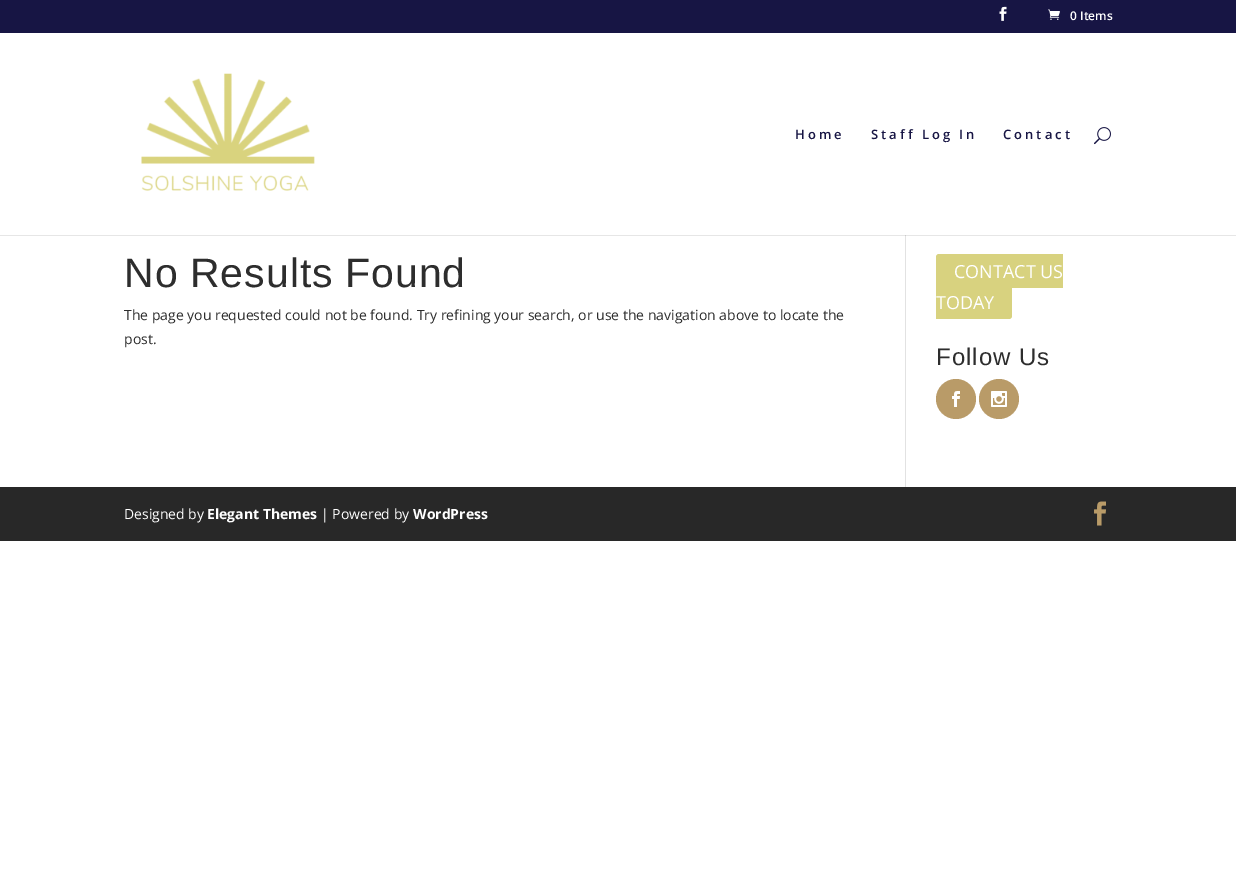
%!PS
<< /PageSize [1236 884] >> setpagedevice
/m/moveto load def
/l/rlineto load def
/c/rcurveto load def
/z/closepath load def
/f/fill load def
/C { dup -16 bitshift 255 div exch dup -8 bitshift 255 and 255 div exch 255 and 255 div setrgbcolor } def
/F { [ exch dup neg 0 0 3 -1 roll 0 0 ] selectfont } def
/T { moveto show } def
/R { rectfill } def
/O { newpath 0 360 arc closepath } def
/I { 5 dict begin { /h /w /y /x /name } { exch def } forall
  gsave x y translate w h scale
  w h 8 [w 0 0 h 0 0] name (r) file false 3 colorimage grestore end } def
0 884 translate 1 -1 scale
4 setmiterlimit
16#FFFFFF C
0 0 1236 884 R
16#E6E6E6 C
0 235 1236 1 R
16#171544 C
0 0 1236 33 R
(1.rgb) 999 6 8 15 I
(2.rgb) 1048 9 12 11 I
/OpenSans-SemiBold 12 F
16#FFFFFF C
(0 Items) 1070 20 T
(3.rgb) 141 73 174 118 I
/OpenSans-SemiBold 13 F
16#171544 C
795 139 m 3 0 (Home) ashow
871 139 m 3 0 (Staff Log In) ashow
1003 139 m 3 0 (Contact) ashow
(4.rgb) 1094 127 17 18 I
16#E2E2E2 C
905 236 1 251 R
16#CBCBCB C
905 235 1 1 R
/LiberationSans-Regular 41 F
16#2D2D2D C
124 287 m -1 0 32 1 0 (No Results Found) awidthshow
/OpenSans-Regular 14 F
(The page you requested could not be found. Try refining your search, or use the navigation above to locate the) 124 320 T
(post.) 124 344 T
16#D8D27F C
939 254 m 124 0 l 0 34 l -124 0 l -1.5 0 -3 -1.5 -3 -3 c 0 -28 l 0 -1.5 1.5 -3 3 -3 c z f
/OpenSans-Regular 18 F
16#FFFFFF C
(CONTACT US) 954 278 T
16#D8D27F C
936 284 m 73 0 l 1.5 0 3 1.5 3 3 c 0 29 l 0 1.5 -1.5 3 -3 3 c -73 0 l z f
16#FFFFFF C
(TODAY) 936 309 T
/LiberationSans-Regular 24 F
16#2D2D2D C
936 365 m 1 0 (Follow Us) ashow
16#B99B68 C
956 399 20 O f
(5.rgb) 952 391 8 16 I
999 399 20 O f
(6.rgb) 991 391 16 16 I
16#282828 C
0 487 1236 54 R
/OpenSans-Regular 14 F
16#FFFFFF C
(Designed by) 124 519 T
/OpenSans-Bold 14 F
(Elegant Themes) 207 519 T
/OpenSans-Regular 14 F
(| Powered by) 321 519 T
/OpenSans-Bold 14 F
(WordPress) 413 519 T
(7.rgb) 1094 501 12 25 I
showpage
